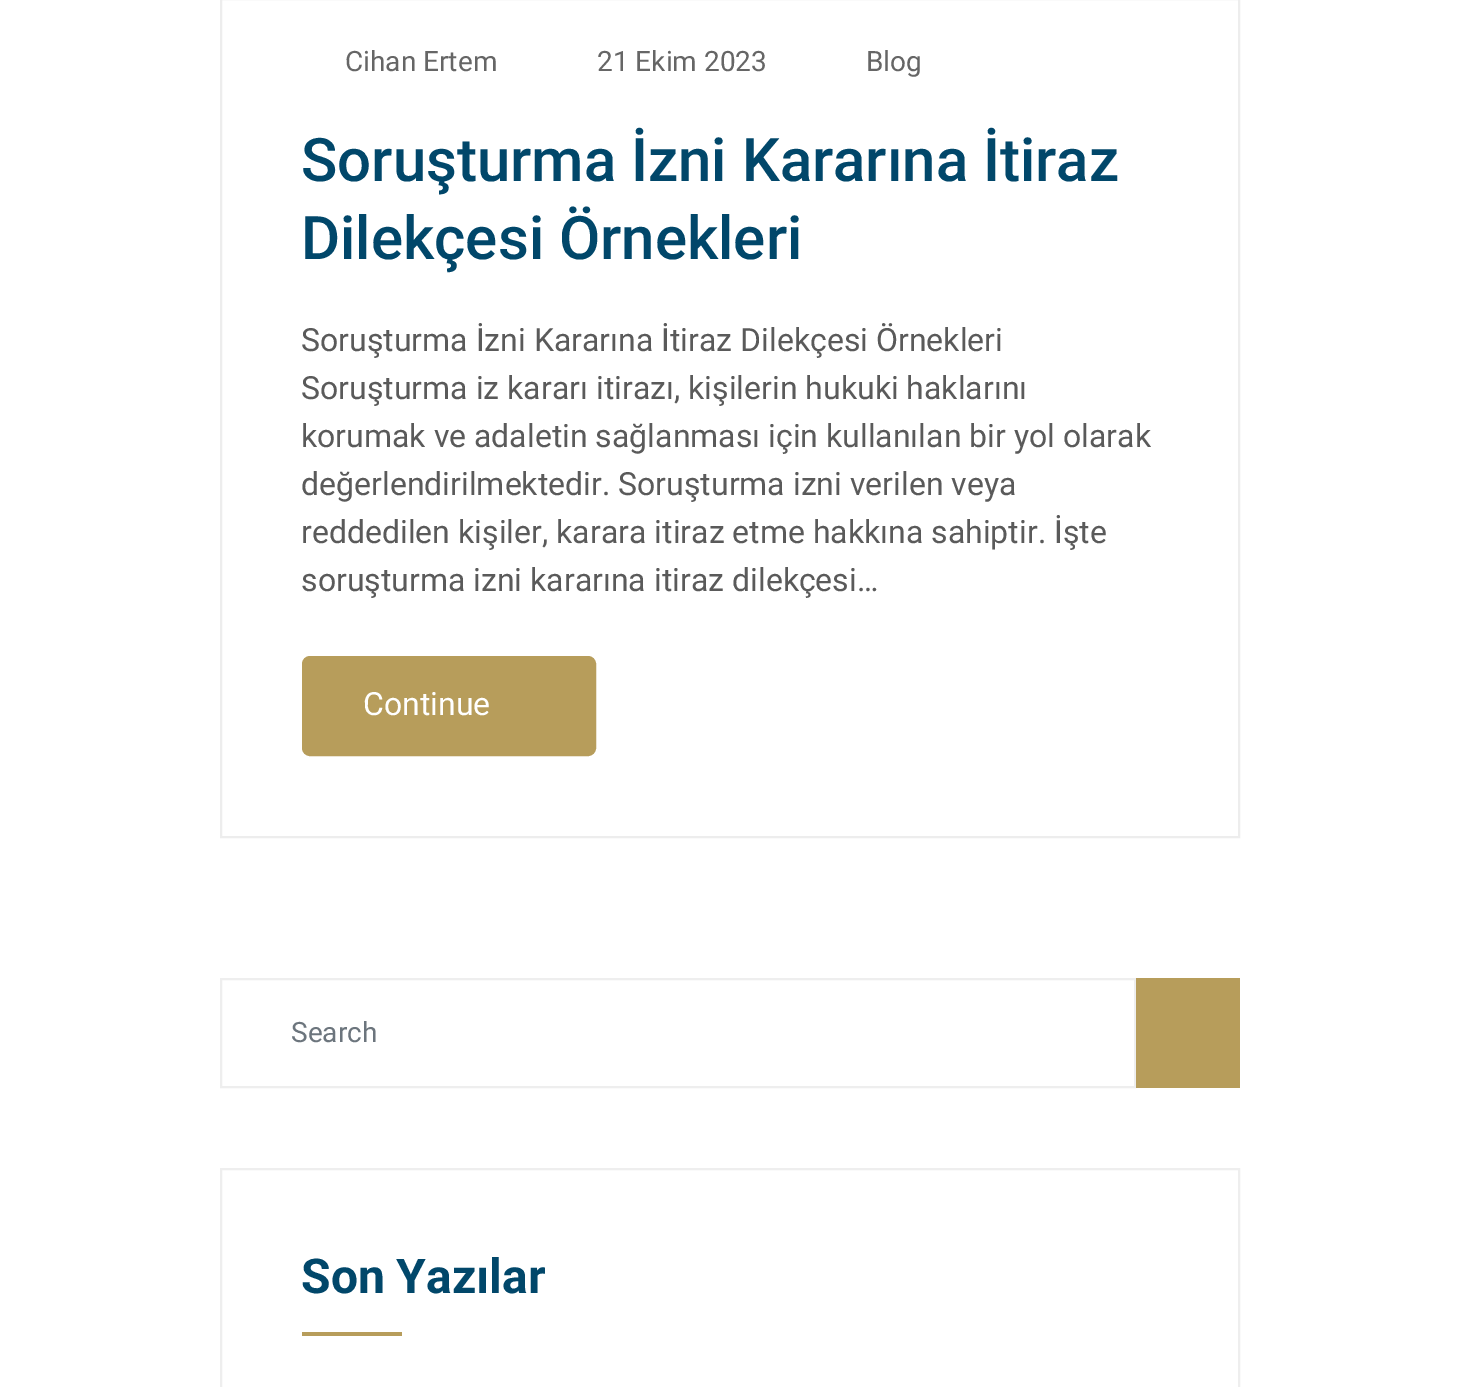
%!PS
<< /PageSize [1457 1387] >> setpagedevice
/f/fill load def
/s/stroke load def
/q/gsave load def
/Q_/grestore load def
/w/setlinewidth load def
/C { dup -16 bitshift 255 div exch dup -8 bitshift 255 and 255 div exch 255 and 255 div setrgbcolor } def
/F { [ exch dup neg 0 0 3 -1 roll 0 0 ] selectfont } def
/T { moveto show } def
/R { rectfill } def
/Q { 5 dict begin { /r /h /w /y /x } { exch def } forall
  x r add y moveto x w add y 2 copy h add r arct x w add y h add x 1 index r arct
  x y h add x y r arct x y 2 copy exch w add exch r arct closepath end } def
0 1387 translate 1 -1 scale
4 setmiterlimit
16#FFFFFF C
0 0 1457 1387 R
16#EDEDED C
2 w
221 -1 1018 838 rectstroke
/Roboto-Regular 28 F
16#666666 C
(Cihan Ertem) 345 71 T
(21 Ekim 2023) 597 71 T
(Blog) 866 71 T
/Roboto-Medium 60 F
16#01476A C
(Soruşturma İzni Kararına İtiraz) 301 181 T
(Dilekçesi Örnekleri) 301 259 T
/Roboto-Regular 32 F
16#5A5A5A C
(Soruşturma İzni Kararına İtiraz Dilekçesi Örnekleri) 301 351 T
(Soruşturma iz kararı itirazı, kişilerin hukuki haklarını) 301 399 T
(korumak ve adaletin sağlanması için kullanılan bir yol olarak) 301 447 T
(değerlendirilmektedir. Soruşturma izni verilen veya) 301 495 T
(reddedilen kişiler, karara itiraz etme hakkına sahiptir. İşte) 301 543 T
(soruşturma izni kararına itiraz dilekçesi…) 301 591 T
16#B79D5B C
303 657 292 98 7 Q q f Q_
s
16#FFFFFF C
(Continue) 363 715 T
16#EEEEEE C
221 979 914 108 rectstroke
/Roboto-Regular 28 F
16#6C757D C
(Search) 291 1042 T
16#B79D5B C
1136 978 104 110 R
16#EEEEEE C
221 1169 1018 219 rectstroke
/Roboto-Bold 48 F
16#01476A C
(Son Yazılar) 301 1293 T
16#B79D5B C
302 1332 100 4 R
showpage
